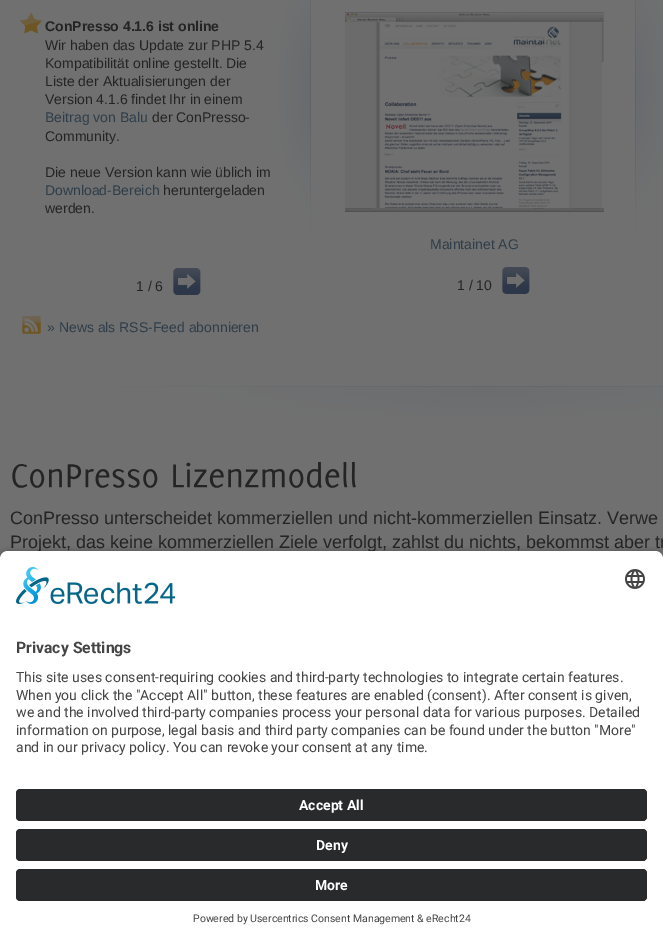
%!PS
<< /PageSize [663 941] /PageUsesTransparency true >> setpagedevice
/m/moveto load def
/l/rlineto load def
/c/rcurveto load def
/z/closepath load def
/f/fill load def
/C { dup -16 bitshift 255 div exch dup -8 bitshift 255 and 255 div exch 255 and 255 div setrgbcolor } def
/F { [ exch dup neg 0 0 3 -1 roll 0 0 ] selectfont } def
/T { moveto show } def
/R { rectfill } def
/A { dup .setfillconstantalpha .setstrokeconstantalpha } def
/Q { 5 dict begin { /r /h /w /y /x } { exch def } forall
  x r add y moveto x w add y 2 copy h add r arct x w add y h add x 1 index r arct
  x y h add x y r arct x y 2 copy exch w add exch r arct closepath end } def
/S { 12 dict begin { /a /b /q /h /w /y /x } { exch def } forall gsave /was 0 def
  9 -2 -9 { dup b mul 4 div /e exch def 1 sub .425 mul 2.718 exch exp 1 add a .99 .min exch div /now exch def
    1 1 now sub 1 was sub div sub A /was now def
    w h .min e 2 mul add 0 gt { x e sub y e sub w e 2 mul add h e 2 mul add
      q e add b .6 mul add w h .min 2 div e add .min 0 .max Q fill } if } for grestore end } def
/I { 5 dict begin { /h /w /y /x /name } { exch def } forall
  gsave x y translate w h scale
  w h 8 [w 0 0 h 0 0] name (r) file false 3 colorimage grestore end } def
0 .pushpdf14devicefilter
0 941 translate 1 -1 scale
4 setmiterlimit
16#707070 C
0 0 663 941 R
(1.rgb) 277 0 386 252 I
(2.rgb) 20 12 23 22 I
/LiberationSans-Bold 14 F
16#242424 C
(ConPresso 4.1.6 ist online) 45 31 T
/LiberationSans-Regular 14 F
(Wir haben das Update zur PHP 5.4) 45 50 T
(Kompatibilität online gestellt. Die) 45 68 T
(Liste der Aktualisierungen der) 45 86 T
(Version 4.1.6 findet Ihr in einem) 45 104 T
16#2E3D49 C
(Beitrag von Balu) 45 122 T
16#242424 C
(der ConPresso-) 152 122 T
(Community.) 45 141 T
(Die neue Version kann wie üblich im) 45 177 T
16#2E3D49 C
(Download-Bereich) 45 195 T
16#242424 C
(heruntergeladen) 163 195 T
(werden.) 45 213 T
(1 / 6) 136 291 T
(3.rgb) 173 268 28 27 I
(4.rgb) 22 316 19 18 I
16#2E3D49 C
(» News als RSS-Feed abonnieren) 47 332 T
(5.rgb) 345 12 259 200 I
(Maintainet AG) 430 249 T
16#242424 C
(1 / 10) 457 290 T
(3.rgb) 502 267 28 27 I
(6.rgb) 85 386 578 31 I
(7.rgb) 12 464 146 24 I
(8.rgb) 173 462 183 26 I
/LiberationSans-Regular 18 F
(ConPresso unterscheidet kommerziellen und nicht-kommerziellen Einsatz. Verwe) 10 524 T
(Projekt, das keine kommerziellen Ziele verfolgt, zahlst du nichts, bekommst aber tr) 10 548 T
16#000000 C
0 554 663 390 8 3.5 .8 S
16#FFFFFF C
8 551 m 647 0 l 4.5 0 8 3.5 8 8 c 0 218 l -663 0 l 0 -218 l 0 -4.5 3.5 -8 8 -8 c z f
(9.rgb) 16 567 160 37 I
(10.rgb) 625 569 20 20 I
/Roboto-Bold 15.75 F
16#444444 C
(Privacy Settings) 16 653 T
/Roboto-Regular 14 F
(This site uses consent-requiring cookies and third-party technologies to integrate certain features.) 16 682 T
(When you click the "Accept All" button, these features are enabled \(consent\). After consent is given,) 16 700 T
(we and the involved third-party companies process your personal data for various purposes. Detailed) 16 717 T
(information on purpose, legal basis and third party companies can be found under the button "More") 16 735 T
(and in our privacy policy. You can revoke your consent at any time.) 16 752 T
16#FFFFFF C
0 777 663 164 R
16#292A2B C
16 789 631 32 4 Q f
/Roboto-Bold 14 F
16#FFFFFF C
(Accept All) 299 810 T
16#292A2B C
16 829 631 32 4 Q f
16#FFFFFF C
(Deny) 316 850 T
16#292A2B C
16 869 631 32 4 Q f
16#FFFFFF C
(More) 315 890 T
/Roboto-Regular 10.5 F
16#444444 C
(Powered by Usercentrics Consent Management & eRecht24) 193 922 T
.poppdf14devicefilter showpage
